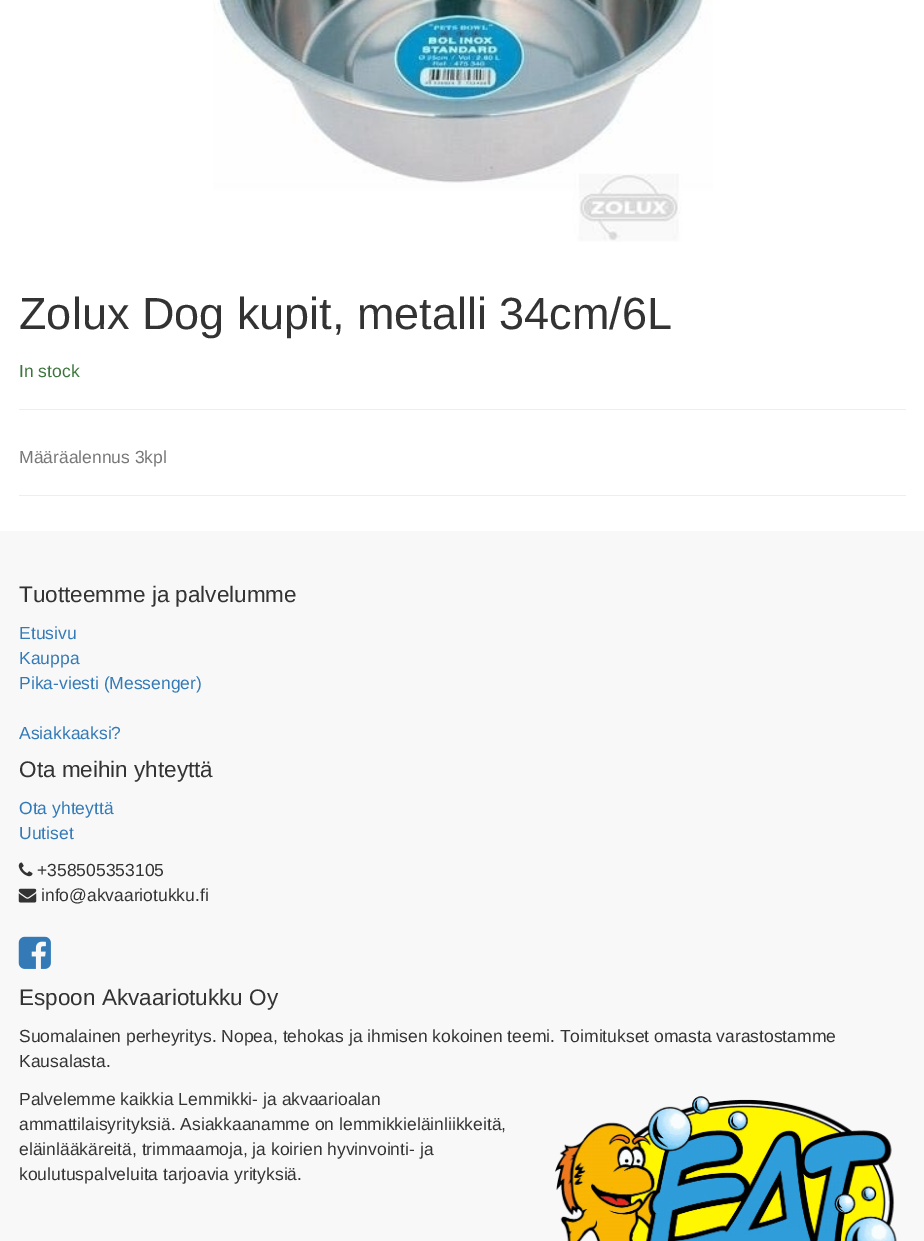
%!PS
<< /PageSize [924 1241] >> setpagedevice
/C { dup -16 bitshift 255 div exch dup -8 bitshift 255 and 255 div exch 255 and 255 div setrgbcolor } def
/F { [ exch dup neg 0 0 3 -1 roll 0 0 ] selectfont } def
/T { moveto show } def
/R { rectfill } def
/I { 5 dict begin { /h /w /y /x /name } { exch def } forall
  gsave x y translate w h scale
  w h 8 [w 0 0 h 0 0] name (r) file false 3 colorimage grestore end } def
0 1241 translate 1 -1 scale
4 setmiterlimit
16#FFFFFF C
0 0 924 1241 R
(1.rgb) 213 0 500 242 I
/LiberationSans-Regular 45 F
16#333333 C
(Zolux Dog kupit, metalli 34cm/6L) 19 329 T
/LiberationSans-Regular 17.5 F
16#3C763D C
(In stock) 19 377 T
16#EEEEEE C
19 409 887 1 R
16#777777 C
(Määräalennus 3kpl) 19 463 T
16#EEEEEE C
19 495 887 1 R
16#F8F8F8 C
0 531 924 710 R
/LiberationSans-Regular 22.5 F
16#333333 C
(Tuotteemme ja palvelumme) 19 602 T
/LiberationSans-Regular 17.5 F
16#337AB7 C
(Etusivu) 19 639 T
(Kauppa) 19 664 T
(Pika-viesti \(Messenger\)) 19 689 T
(Asiakkaaksi?) 19 739 T
/LiberationSans-Regular 22.5 F
16#333333 C
(Ota meihin yhteyttä) 19 777 T
/LiberationSans-Regular 17.5 F
16#337AB7 C
(Ota yhteyttä) 19 814 T
(Uutiset) 19 839 T
(2.rgb) 18 862 15 15 I
16#333333 C
(+358505353105) 37 876 T
(3.rgb) 18 888 19 15 I
(info@akvaariotukku.fi) 41 901 T
(4.rgb) 18 936 33 33 I
/LiberationSans-Regular 22.5 F
(Espoon Akvaariotukku Oy) 19 1005 T
/LiberationSans-Regular 17.5 F
(Suomalainen perheyritys. Nopea, tehokas ja ihmisen kokoinen teemi. Toimitukset omasta varastostamme) 19 1042 T
(Kausalasta.) 19 1067 T
(Palvelemme kaikkia Lemmikki- ja akvaarioalan) 19 1105 T
(ammattilaisyrityksiä. Asiakkaanamme on lemmikkieläinliikkeitä,) 19 1130 T
(eläinlääkäreitä, trimmaamoja, ja koirien hyvinvointi- ja) 19 1155 T
(koulutuspalveluita tarjoavia yrityksiä.) 19 1180 T
(5.rgb) 555 1096 342 145 I
showpage
